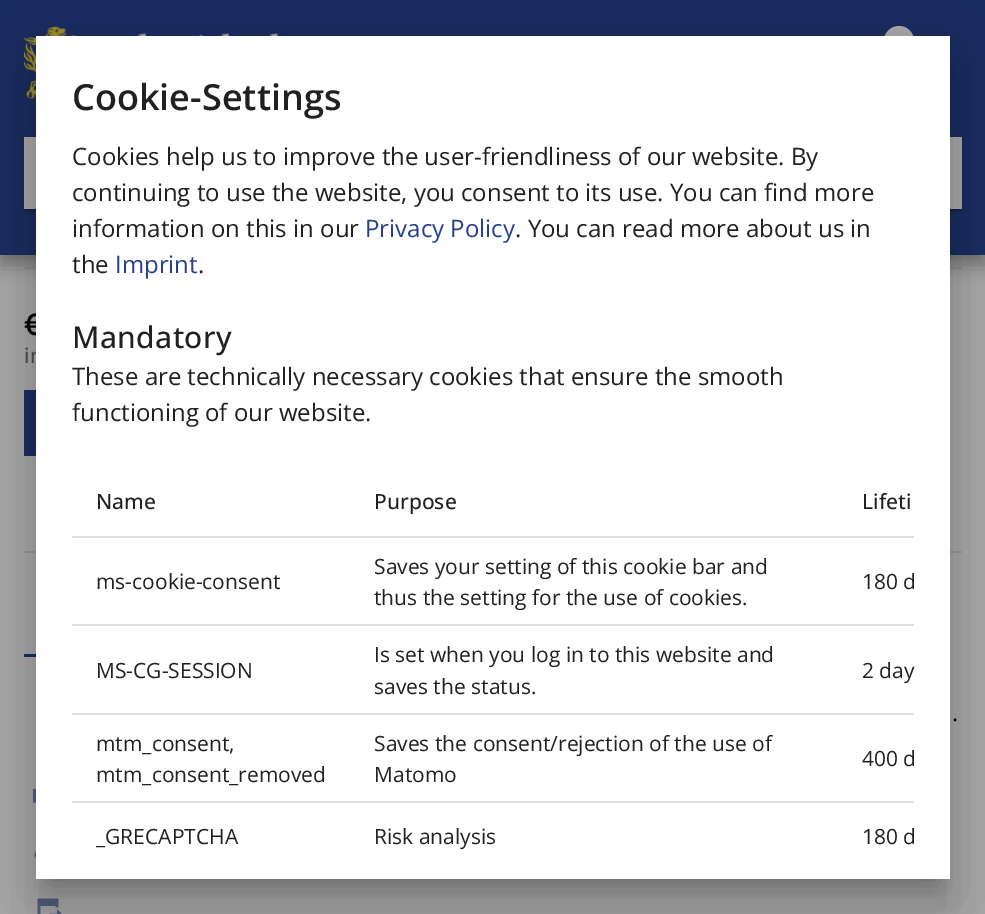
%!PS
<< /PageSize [985 914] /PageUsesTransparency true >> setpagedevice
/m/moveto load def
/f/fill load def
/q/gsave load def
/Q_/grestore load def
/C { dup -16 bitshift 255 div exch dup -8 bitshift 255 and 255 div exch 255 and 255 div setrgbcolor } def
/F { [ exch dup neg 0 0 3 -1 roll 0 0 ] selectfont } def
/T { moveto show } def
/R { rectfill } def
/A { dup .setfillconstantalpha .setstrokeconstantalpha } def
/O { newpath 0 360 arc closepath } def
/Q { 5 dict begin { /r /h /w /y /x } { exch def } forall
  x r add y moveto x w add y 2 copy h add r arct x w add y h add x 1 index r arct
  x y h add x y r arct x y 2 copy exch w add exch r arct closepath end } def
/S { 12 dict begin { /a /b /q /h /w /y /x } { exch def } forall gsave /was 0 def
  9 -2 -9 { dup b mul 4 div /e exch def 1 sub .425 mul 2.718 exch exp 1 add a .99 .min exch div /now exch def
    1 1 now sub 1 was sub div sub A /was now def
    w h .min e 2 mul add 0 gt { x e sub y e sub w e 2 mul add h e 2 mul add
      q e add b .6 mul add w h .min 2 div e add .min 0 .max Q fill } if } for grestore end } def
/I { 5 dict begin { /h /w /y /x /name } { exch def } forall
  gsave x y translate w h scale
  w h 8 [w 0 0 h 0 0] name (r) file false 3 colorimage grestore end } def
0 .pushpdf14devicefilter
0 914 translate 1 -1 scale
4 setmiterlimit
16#ADADAD C
0 0 985 914 R
16#9D9FA5 C
24 267 938 2 R
16#000000 C
-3 2 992 261 0 10.5 .12 S
-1 11 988 258 0 7.5 .14 S
5 12 976 246 0 4 .2 S
16#192C61 C
0 0 985 255 R
(1.rgb) 24 26 254 74 I
16#ADADAD C
899 41 15 O f
16#000000 C
24 138 938 72 0 4 .12 S
24 140 938 72 0 1.5 .14 S
27 144 932 66 0 1 .2 S
16#ADADAD C
24 137 938 72 R
16#192C61 C
24 390 12 66 R
16#9D9FA5 C
24 551 938 2 R
16#192C61 C
24 654 12 3 R
(2.rgb) 33 789 3 14 I
(3.rgb) 34 851 2 8 I
(4.rgb) 37 898 25 16 I
16#000000 C
24 38 938 867 0 34.5 .12 S
32 68 922 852 0 28.5 .14 S
47 63 892 822 0 11 .2 S
/OpenSans-SemiBold 30 F
24 335 m .4 0 (€) ashow
/OpenSans-Medium 21 F
16#454545 C
(in) 24 363 T
16#FFFFFF C
36 36 914 843 R
/OpenSans-SemiBold 36 F
16#212121 C
(Cookie-Settings) 72 110 T
/OpenSans-Regular 24 F
(Cookies help us to improve the user-friendliness of our website. By) 72 165 T
(continuing to use the website, you consent to its use. You can find more) 72 201 T
(information on this in our) 72 237 T
16#25408F C
(Privacy Policy) 365 237 T
16#212121 C
(. You can read more about us in) 515 237 T
(the) 72 273 T
16#25408F C
(Imprint) 115 273 T
16#212121 C
(.) 198 273 T
/OpenSans-Medium 30 F
72 348 m .4 0 (Mandatory) ashow
/OpenSans-Regular 24 F
(These are technically necessary cookies that ensure the smooth) 72 385 T
(functioning of our website.) 72 421 T
16#E0E0E0 C
72 536 842 2 R
/OpenSans-Medium 21 F
16#212121 C
(Name) 96 509 T
(Purpose) 374 509 T
(Lifeti) 862 509 T
16#E0E0E0 C
72 624 842 2 R
/OpenSans-Regular 21 F
16#212121 C
(ms-cookie-consent) 96 589 T
(Saves your setting of this cookie bar and) 374 574 T
(thus the setting for the use of cookies.) 374 605 T
q
72 465 842 404 rectclip
(180 d) 862 589 T
Q_
16#E0E0E0 C
72 713 842 2 R
16#212121 C
(MS-CG-SESSION) 96 678 T
(Is set when you log in to this website and) 374 662 T
(saves the status.) 374 694 T
(2 day) 862 678 T
16#E0E0E0 C
72 801 842 2 R
16#212121 C
(mtm_consent,) 96 751 T
(mtm_consent_removed) 96 782 T
(Saves the consent/rejection of the use of) 374 751 T
(Matomo) 374 782 T
q
72 465 842 404 rectclip
(400 d) 862 766 T
Q_
(_GRECAPTCHA) 96 844 T
(Risk analysis) 374 844 T
q
72 465 842 404 rectclip
(180 d) 862 844 T
Q_
/OpenSans-Regular 24 F
16#000000 C
(.) 952 721 T
.poppdf14devicefilter showpage
